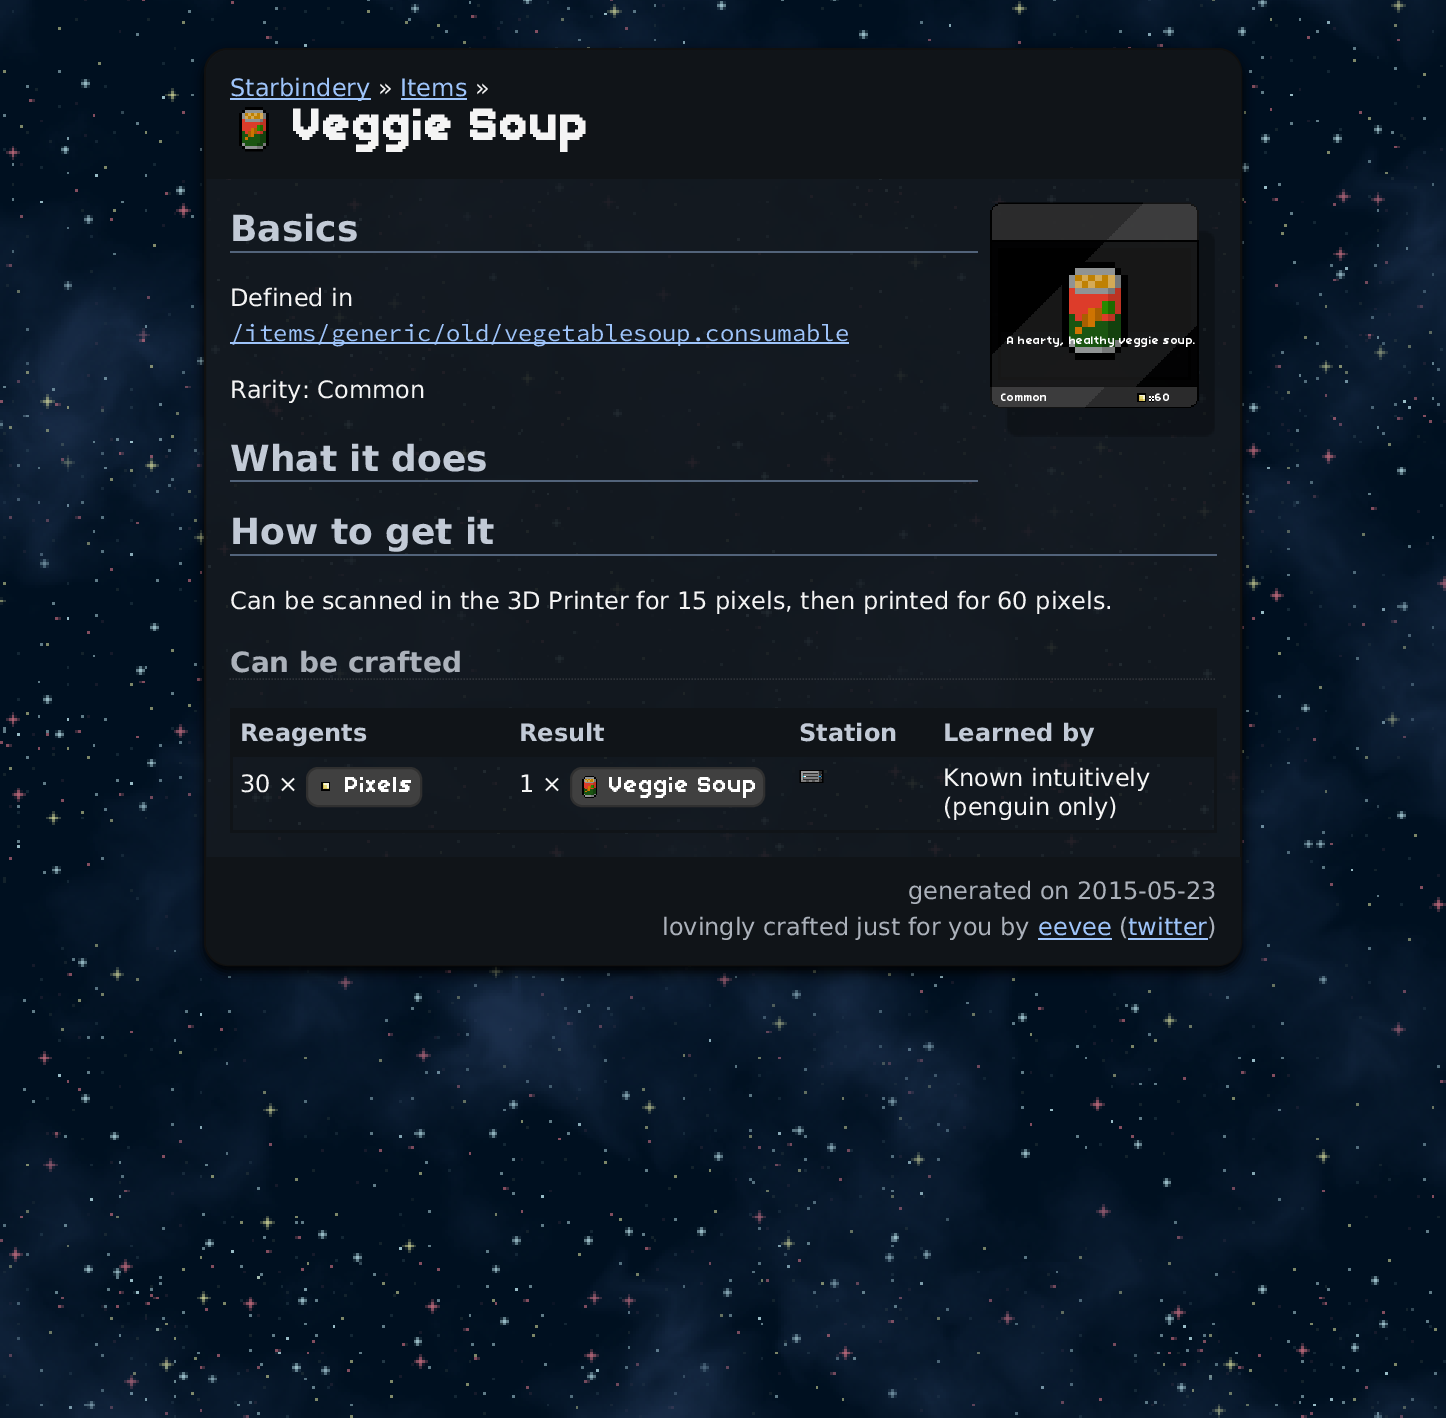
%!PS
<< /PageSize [1446 1418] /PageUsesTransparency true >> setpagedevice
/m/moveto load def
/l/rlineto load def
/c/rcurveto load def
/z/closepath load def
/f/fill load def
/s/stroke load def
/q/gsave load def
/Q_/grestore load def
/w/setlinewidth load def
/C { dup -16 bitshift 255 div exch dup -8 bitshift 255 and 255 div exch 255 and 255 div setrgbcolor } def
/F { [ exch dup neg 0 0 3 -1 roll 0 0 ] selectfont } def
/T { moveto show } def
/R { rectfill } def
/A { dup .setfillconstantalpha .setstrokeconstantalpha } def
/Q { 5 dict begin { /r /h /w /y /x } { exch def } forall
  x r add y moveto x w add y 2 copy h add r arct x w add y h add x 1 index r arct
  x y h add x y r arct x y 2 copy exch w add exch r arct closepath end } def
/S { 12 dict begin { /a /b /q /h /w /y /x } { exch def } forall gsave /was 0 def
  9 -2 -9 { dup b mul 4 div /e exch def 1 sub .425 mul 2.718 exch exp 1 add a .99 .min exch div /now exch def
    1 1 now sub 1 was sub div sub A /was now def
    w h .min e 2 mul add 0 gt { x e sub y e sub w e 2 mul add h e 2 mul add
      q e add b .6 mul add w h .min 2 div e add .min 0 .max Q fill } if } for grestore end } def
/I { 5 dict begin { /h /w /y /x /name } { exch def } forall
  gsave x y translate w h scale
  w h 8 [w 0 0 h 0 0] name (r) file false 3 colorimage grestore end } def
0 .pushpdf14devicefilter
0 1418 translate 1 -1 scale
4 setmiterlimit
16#001020 C
0 0 1446 1418 R
(1.rgb) 0 0 1446 1418 I
q
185 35 m 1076 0 l 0 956 l -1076 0 l z 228 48 m 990 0 l 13.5 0 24 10.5 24 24 c 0 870 l 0 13.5 -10.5 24 -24 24 c -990 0 l -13.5 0 -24 -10.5 -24 -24 c 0 -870 l 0 -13.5 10.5 -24 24 -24 c z eoclip newpath
16#000000 C
204 54 1038 918 24 6 1 S
Q_
0.9 A
16#14191F C
205 49 1036 916 23 Q f
1 A
16#101010 C
2 w
205 49 1036 916 23 Q s
16#101418 C
230 50 m 987 0 l 13.5 0 24 10.5 24 24 c 0 105 l -1035 0 l 0 -105 l 0 -13.5 10.5 -24 24 -24 c z f
16#9EC4FA C
230 98 141 2 R
/DejaVuSans-Regular 24 F
(Starbindery) 230 96 T
16#F4F4F4 C
(») 378 96 T
16#9EC4FA C
(Items) 400 96 T
401 98 66 2 R
16#F4F4F4 C
(») 475 96 T
(2.rgb) 239 107 30 45 I
/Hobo-Bold 48 F
(Veggie Soup) 293 140 T
16#52637A C
230 251 748 2 R
/DejaVuSans-Bold 36 F
16#C2CAD6 C
(Basics) 230 241 T
/DejaVuSans-Regular 24 F
16#F4F4F4 C
(Defined in) 230 306 T
16#9EC4FA C
230 342 619 2 R
/SourceCodePro-Regular 24 F
(/items/generic/old/vegetablesoup.consumable) 230 341 T
/DejaVuSans-Regular 24 F
16#F4F4F4 C
(Rarity: Common) 230 398 T
(3.rgb) 990 202 225 38 I
(4.rgb) 990 240 225 147 I
(5.rgb) 1062 262 66 98 I
/Hobo-Medium 12 F
16#FFFFFF C
(A hearty, healthy veggie soup.) 1007 344 T
(6.rgb) 990 387 225 50 I
(Common) 1001 401 T
(7.rgb) 1137 393 17 9 I
(60) 1155 401 T
16#52637A C
230 480 748 2 R
/DejaVuSans-Bold 36 F
16#C2CAD6 C
(What it does) 230 471 T
16#52637A C
230 554 987 2 R
16#C2CAD6 C
(How to get it) 230 544 T
/DejaVuSans-Regular 24 F
16#F4F4F4 C
(Can be scanned in the 3D Printer for 15 pixels, then printed for 60 pixels.) 230 609 T
16#2E3238 C
1.5 w
[1.5 1.5] 0 setdash
229.5 679 m 987 0 l s
/DejaVuSans-Bold 28 F
16#ABB1BA C
(Can be crafted) 230 672 T
16#101418 C
230 708 987 3 R
231 755 986 2 R
1214 708 3 125 R
230 830 987 3 R
230 708 3 125 R
233 711 981 44 R
/DejaVuSans-Bold 24 F
16#C2CAD6 C
(Reagents) 240 741 T
(Result) 519 741 T
(Station) 799 741 T
(Learned by) 943 741 T
/DejaVuSans-Regular 24 F
16#F4F4F4 C
(30 ×) 240 792 T
16#404040 C
307 768 114 38 11 Q q f Q_
16#303030 C
2 w
[] 0 setdash
s
(8.rgb) 321 782 9 9 I
/Hobo-Medium 24 F
16#FFFFFF C
(Pixels) 345 792 T
/DejaVuSans-Regular 24 F
16#F4F4F4 C
(1 ×) 519 792 T
16#404040 C
571 768 193 38 11 Q q f Q_
16#303030 C
s
(9.rgb) 582 776 15 22 I
/Hobo-Medium 24 F
16#FFFFFF C
(Veggie Soup) 609 792 T
(10.rgb) 799 770 25 13 I
/DejaVuSans-Regular 24 F
16#F4F4F4 C
(Known intuitively) 943 786 T
(\(penguin only\)) 943 815 T
16#101418 C
206 857 m 1035 0 l 0 84 l 0 13.5 -10.5 24 -24 24 c -987 0 l -13.5 0 -24 -10.5 -24 -24 c z f
16#ABB1BA C
(generated on 2015-05-23) 908 899 T
(lovingly crafted just for you by) 662 935 T
16#9EC4FA C
(eevee) 1038 935 T
1038 938 74 2 R
16#ABB1BA C
(\() 1119 935 T
16#9EC4FA C
(twitter) 1128 935 T
1128 938 80 2 R
16#ABB1BA C
(\)) 1207 935 T
.poppdf14devicefilter showpage
